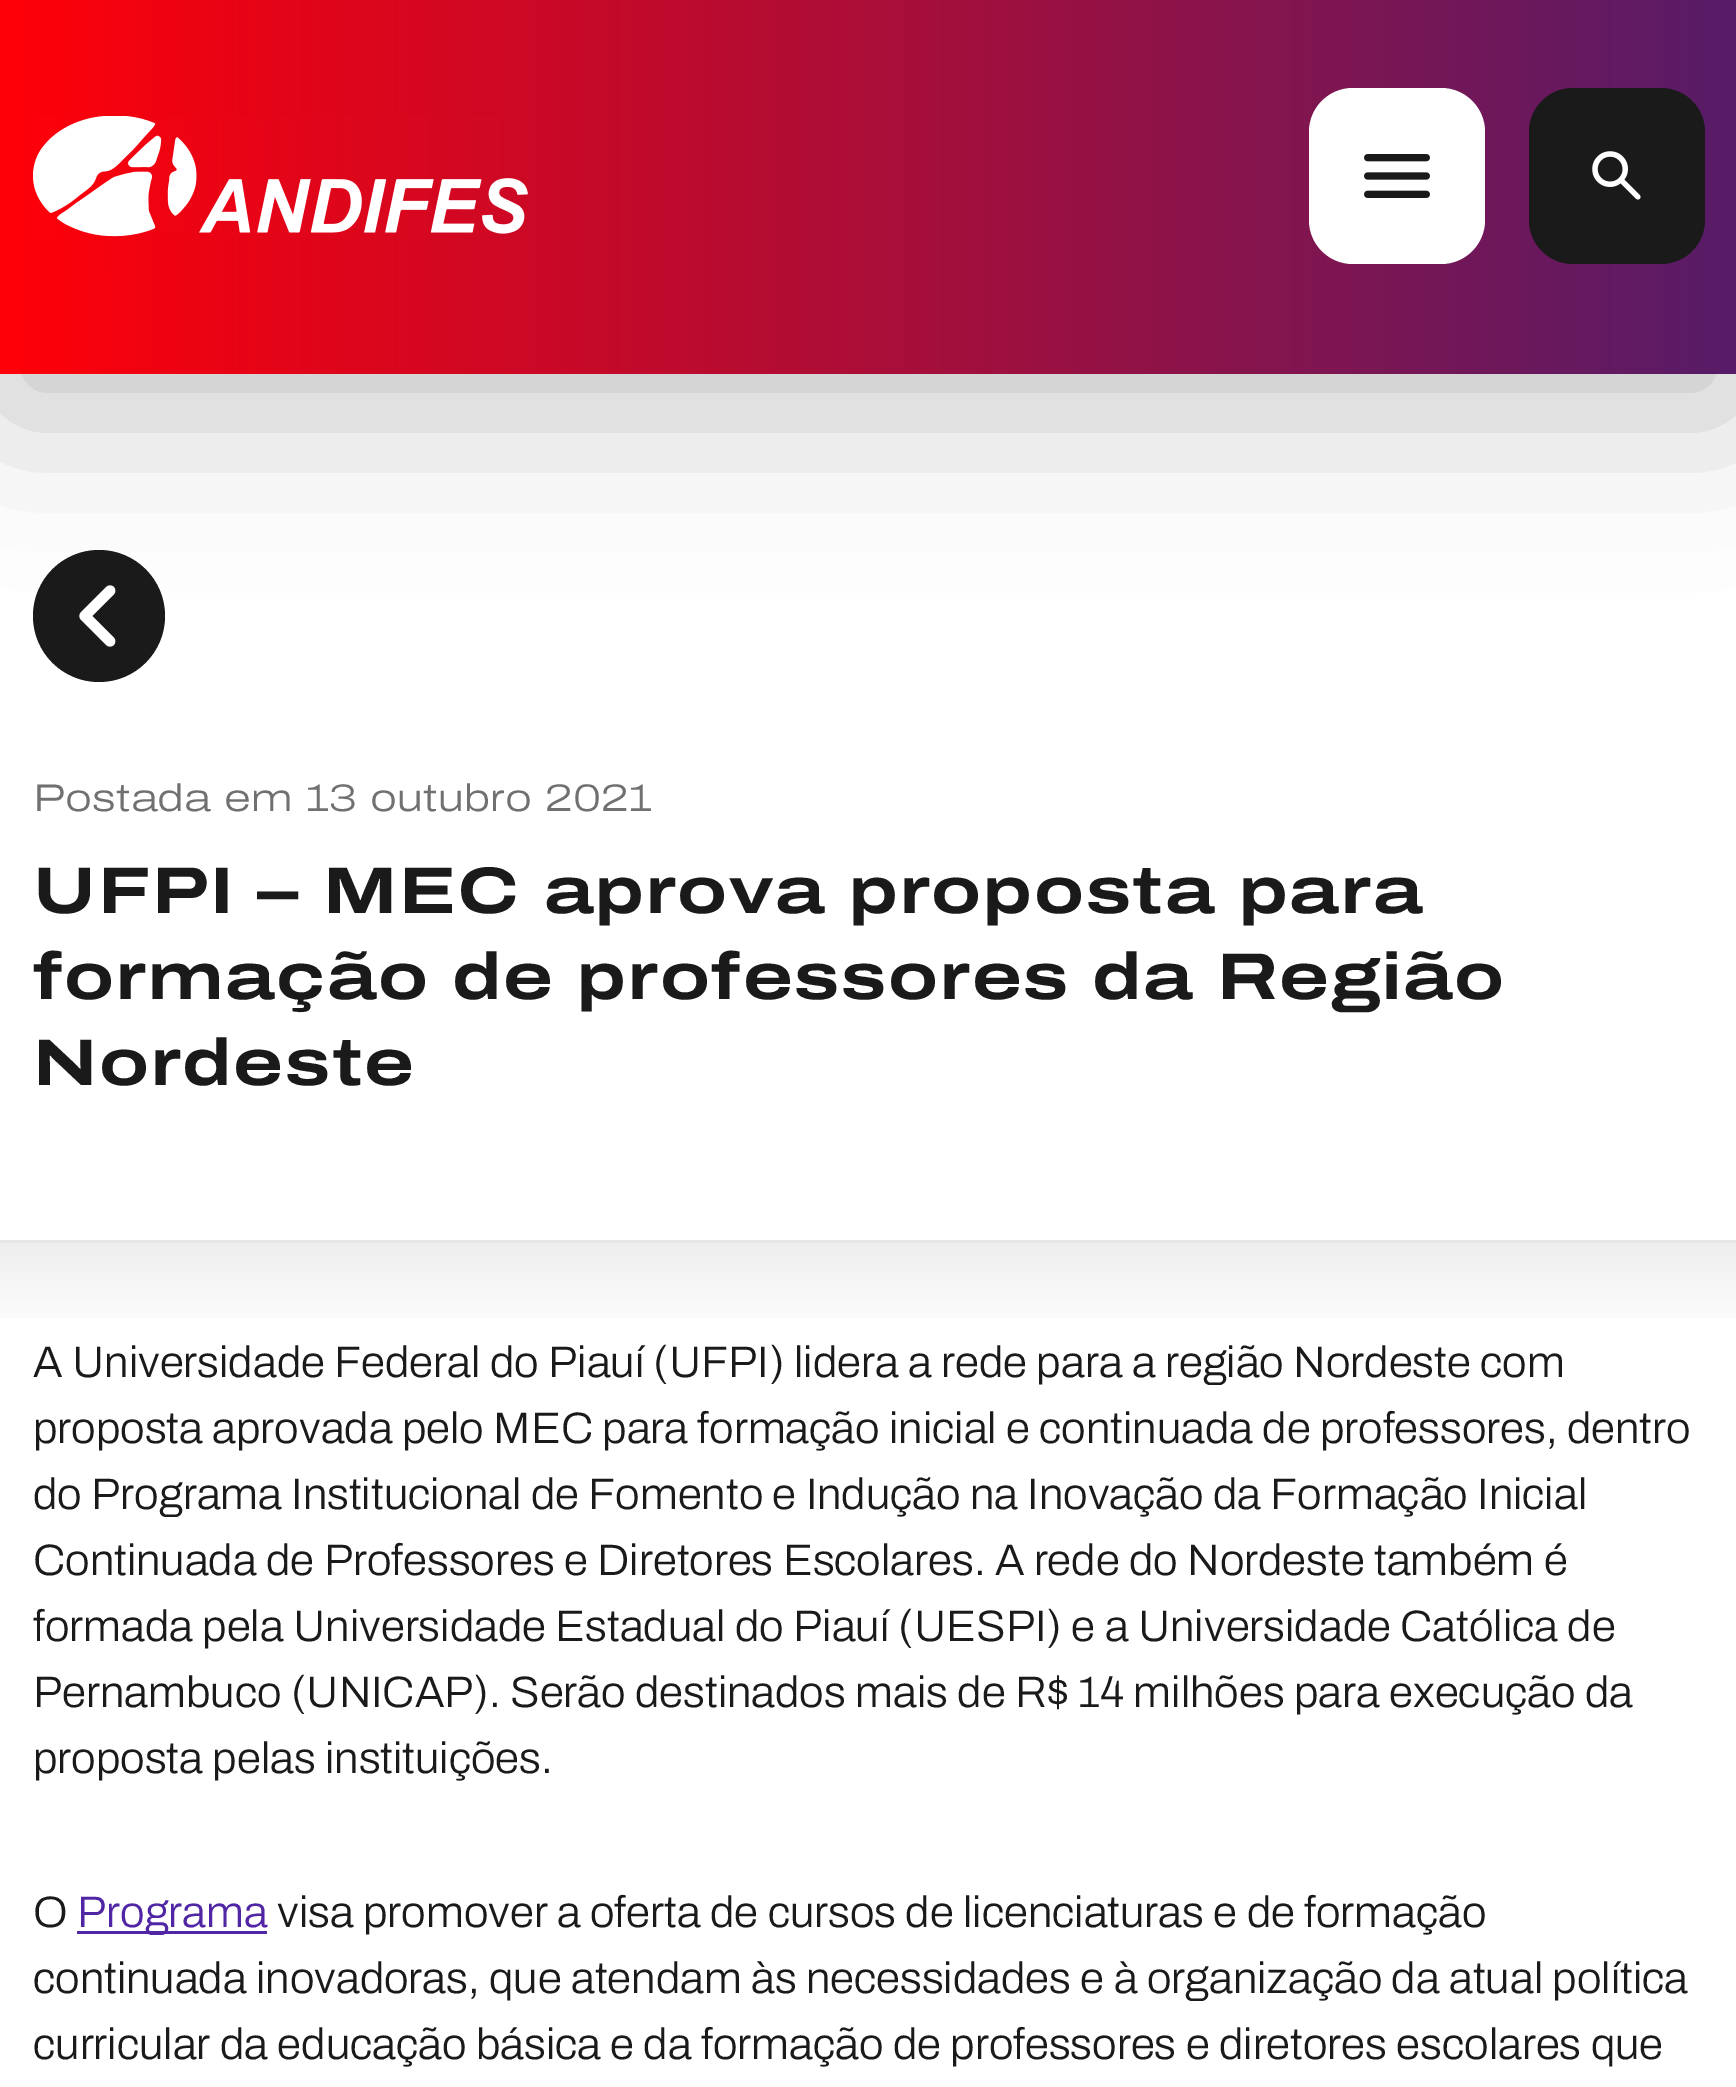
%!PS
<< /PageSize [1736 2087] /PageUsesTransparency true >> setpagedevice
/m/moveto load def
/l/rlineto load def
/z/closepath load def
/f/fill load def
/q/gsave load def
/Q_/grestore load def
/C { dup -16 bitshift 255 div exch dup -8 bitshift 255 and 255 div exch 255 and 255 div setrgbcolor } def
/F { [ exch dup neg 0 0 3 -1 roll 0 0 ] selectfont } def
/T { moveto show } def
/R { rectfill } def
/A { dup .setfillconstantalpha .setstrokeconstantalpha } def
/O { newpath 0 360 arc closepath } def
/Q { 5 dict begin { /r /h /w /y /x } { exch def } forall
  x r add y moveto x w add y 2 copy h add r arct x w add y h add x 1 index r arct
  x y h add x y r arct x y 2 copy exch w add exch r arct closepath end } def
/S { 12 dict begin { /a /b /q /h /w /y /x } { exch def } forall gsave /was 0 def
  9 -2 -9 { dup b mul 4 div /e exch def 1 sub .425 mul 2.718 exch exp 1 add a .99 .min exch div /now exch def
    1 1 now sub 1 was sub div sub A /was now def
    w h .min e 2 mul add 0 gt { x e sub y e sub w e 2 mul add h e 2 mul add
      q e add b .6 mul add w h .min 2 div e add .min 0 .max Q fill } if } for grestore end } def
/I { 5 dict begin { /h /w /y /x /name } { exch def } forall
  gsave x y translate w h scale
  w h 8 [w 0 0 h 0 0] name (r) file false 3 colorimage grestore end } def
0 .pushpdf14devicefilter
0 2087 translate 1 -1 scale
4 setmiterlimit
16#FFFFFF C
0 0 1736 2087 R
16#1A1A1A C
99 616 66 O f
(4.rgb) 79 585 37 62 I
16#000000 C
0 39 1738 374 0 80 .24 S
q 0 0 m 1736 0 l 0 374 l -1736 0 l z clip newpath
<< /ShadingType 2 /ColorSpace /DeviceRGB /Coords [0 281 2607 280] /Extend [true true] /Function << /FunctionType 2 /Domain [0 1] /C0 [1 0 .031] /C1 [.008 .165 .596] /N 1 >> >> shfill Q_
(1.rgb) 33 116 495 121 I
16#FFFFFF C
1309 88 176 176 44 Q f
(2.rgb) 1364 154 66 44 I
16#1A1A1A C
1529 88 176 176 44 Q f
(3.rgb) 1592 151 49 49 I
/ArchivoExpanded-Light 38.5 F
16#707070 C
(Postada em 13 outubro 2021) 33 811 T
/ArchivoExpanded-Bold 66 F
16#1A1A1A C
33 913 m 1.65 0 (UFPI – MEC aprova proposta para) ashow
33 999 m 1.65 0 (formação de professores da Região) ashow
33 1085 m 1.65 0 (Nordeste) ashow
q 0 1243 m 1736 0 l 0 75 l -1736 0 l z clip newpath
<< /ShadingType 2 /ColorSpace /DeviceRGB /Coords [869 1331 869 1243] /Extend [true true] /Function << /FunctionType 2 /Domain [0 1] /C0 [1 1 1] /C1 [.933 .933 .933] /N 1 >> >> shfill Q_
16#E6E6E6 C
0 1240 1736 3 R
/Archivo-Light 44 F
16#1A1A1A C
(A Universidade Federal do Piauí \(UFPI\) lidera a rede para a região Nordeste com) 33 1377 T
(proposta aprovada pelo MEC para formação inicial e continuada de professores, dentro) 33 1443 T
(do Programa Institucional de Fomento e Indução na Inovação da Formação Inicial) 33 1509 T
(Continuada de Professores e Diretores Escolares. A rede do Nordeste também é) 33 1575 T
(formada pela Universidade Estadual do Piauí \(UESPI\) e a Universidade Católica de) 33 1641 T
(Pernambuco \(UNICAP\). Serão destinados mais de R$ 14 milhões para execução da) 33 1707 T
(proposta pelas instituições.) 33 1773 T
(O) 33 1927 T
16#5126A5 C
77 1931 190 3 R
(Programa) 77 1927 T
16#1A1A1A C
(visa promover a oferta de cursos de licenciaturas e de formação) 277 1927 T
(continuada inovadoras, que atendam às necessidades e à organização da atual política) 33 1993 T
(curricular da educação básica e da formação de professores e diretores escolares que) 33 2059 T
.poppdf14devicefilter showpage
